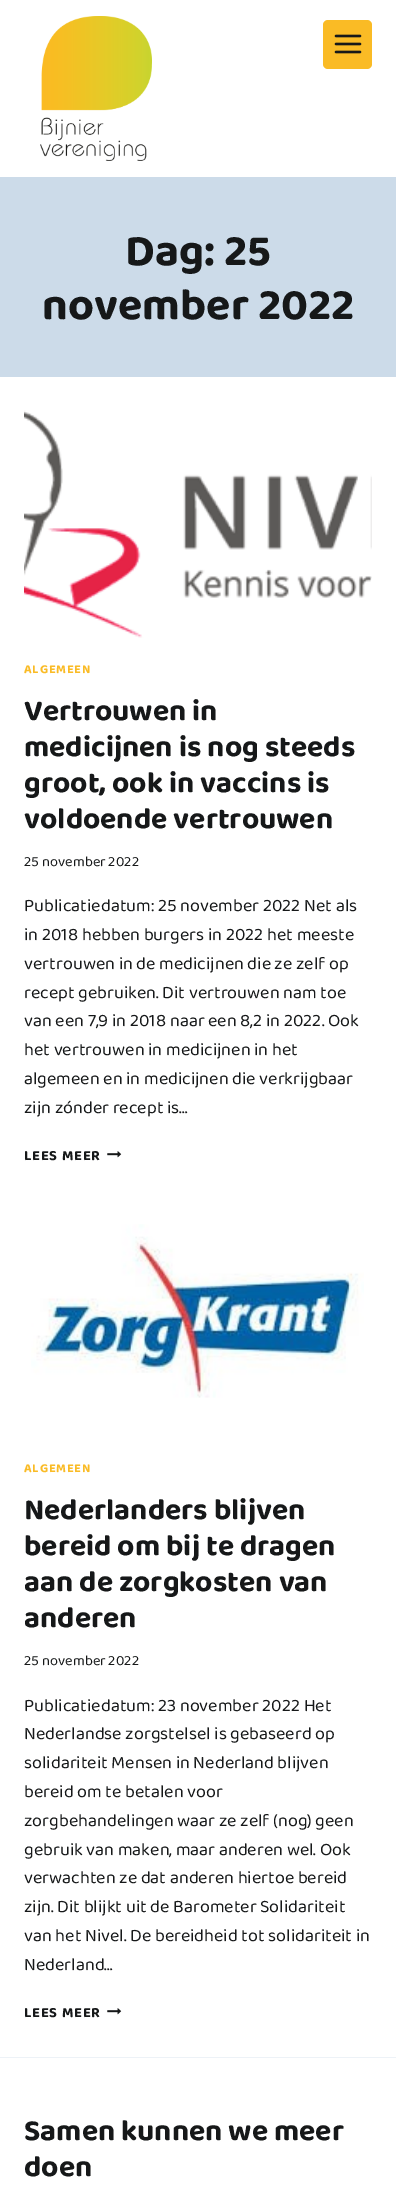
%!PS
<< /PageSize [396 2204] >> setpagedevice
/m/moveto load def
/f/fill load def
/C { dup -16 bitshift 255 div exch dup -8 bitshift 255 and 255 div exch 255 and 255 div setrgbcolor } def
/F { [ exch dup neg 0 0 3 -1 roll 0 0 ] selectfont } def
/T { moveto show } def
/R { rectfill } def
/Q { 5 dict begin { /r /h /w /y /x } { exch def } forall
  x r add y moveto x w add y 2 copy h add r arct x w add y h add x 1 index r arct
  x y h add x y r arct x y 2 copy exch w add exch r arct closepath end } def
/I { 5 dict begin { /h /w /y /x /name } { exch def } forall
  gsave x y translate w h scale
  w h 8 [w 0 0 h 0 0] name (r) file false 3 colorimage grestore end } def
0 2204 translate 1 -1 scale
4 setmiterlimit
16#FFFFFF C
0 0 396 2204 R
(1.rgb) 40 16 112 145 I
16#FABB25 C
323 20 49 49 5 Q f
(2.rgb) 334 34 28 20 I
16#CCDBE9 C
0 177 396 200 R
/BalooChettan2-Bold 45 F
16#161819 C
(Dag: 25) 125 265 T
(november 2022) 42 319 T
(3.rgb) 24 410 348 228 I
/BalooChettan2-Bold 12.5 F
16#FABB25 C
24 673 m .75 0 (ALGEMEEN) ashow
/BalooChettan2-Bold 30 F
16#161819 C
(Vertrouwen in) 24 720 T
(medicijnen is nog steeds) 24 756 T
(groot, ook in vaccins is) 24 792 T
(voldoende vertrouwen) 24 828 T
/BalooChettan2-Regular 14.5 F
(25 november 2022) 24 866 T
/BalooChettan2-Regular 18 F
(Publicatiedatum: 25 november 2022 Net als) 24 911 T
(in 2018 hebben burgers in 2022 het meeste) 24 940 T
(vertrouwen in de medicijnen die ze zelf op) 24 969 T
(recept gebruiken. Dit vertrouwen nam toe) 24 998 T
(van een 7,9 in 2018 naar een 8,2 in 2022. Ook) 24 1026 T
(het vertrouwen in medicijnen in het) 24 1055 T
(algemeen en in medicijnen die verkrijgbaar) 24 1084 T
(zijn zónder recept is…) 24 1113 T
/BalooChettan2-Bold 14.5 F
24 1160 m .75 0 (LEES MEER) ashow
(4.rgb) 107 1151 15 7 I
(5.rgb) 31 1224 333 174 I
/BalooChettan2-Bold 12.5 F
16#FABB25 C
24 1472 m .75 0 (ALGEMEEN) ashow
/BalooChettan2-Bold 30 F
16#161819 C
(Nederlanders blijven) 24 1519 T
(bereid om bij te dragen) 24 1555 T
(aan de zorgkosten van) 24 1591 T
(anderen) 24 1627 T
/BalooChettan2-Regular 14.5 F
(25 november 2022) 24 1665 T
/BalooChettan2-Regular 18 F
(Publicatiedatum: 23 november 2022 Het) 24 1711 T
(Nederlandse zorgstelsel is gebaseerd op) 24 1739 T
(solidariteit Mensen in Nederland blijven) 24 1768 T
(bereid om te betalen voor) 24 1797 T
(zorgbehandelingen waar ze zelf \(nog\) geen) 24 1826 T
(gebruik van maken, maar anderen wel. Ook) 24 1855 T
(verwachten ze dat anderen hiertoe bereid) 24 1883 T
(zijn. Dit blijkt uit de Barometer Solidariteit) 24 1912 T
(van het Nivel. De bereidheid tot solidariteit in) 24 1941 T
(Nederland…) 24 1970 T
/BalooChettan2-Bold 14.5 F
24 2017 m .75 0 (LEES MEER) ashow
(4.rgb) 107 2008 15 7 I
16#EDF2F7 C
0 2057 396 1 R
/BalooChettan2-Bold 30 F
16#161819 C
(Samen kunnen we meer) 24 2140 T
(doen) 24 2176 T
showpage
